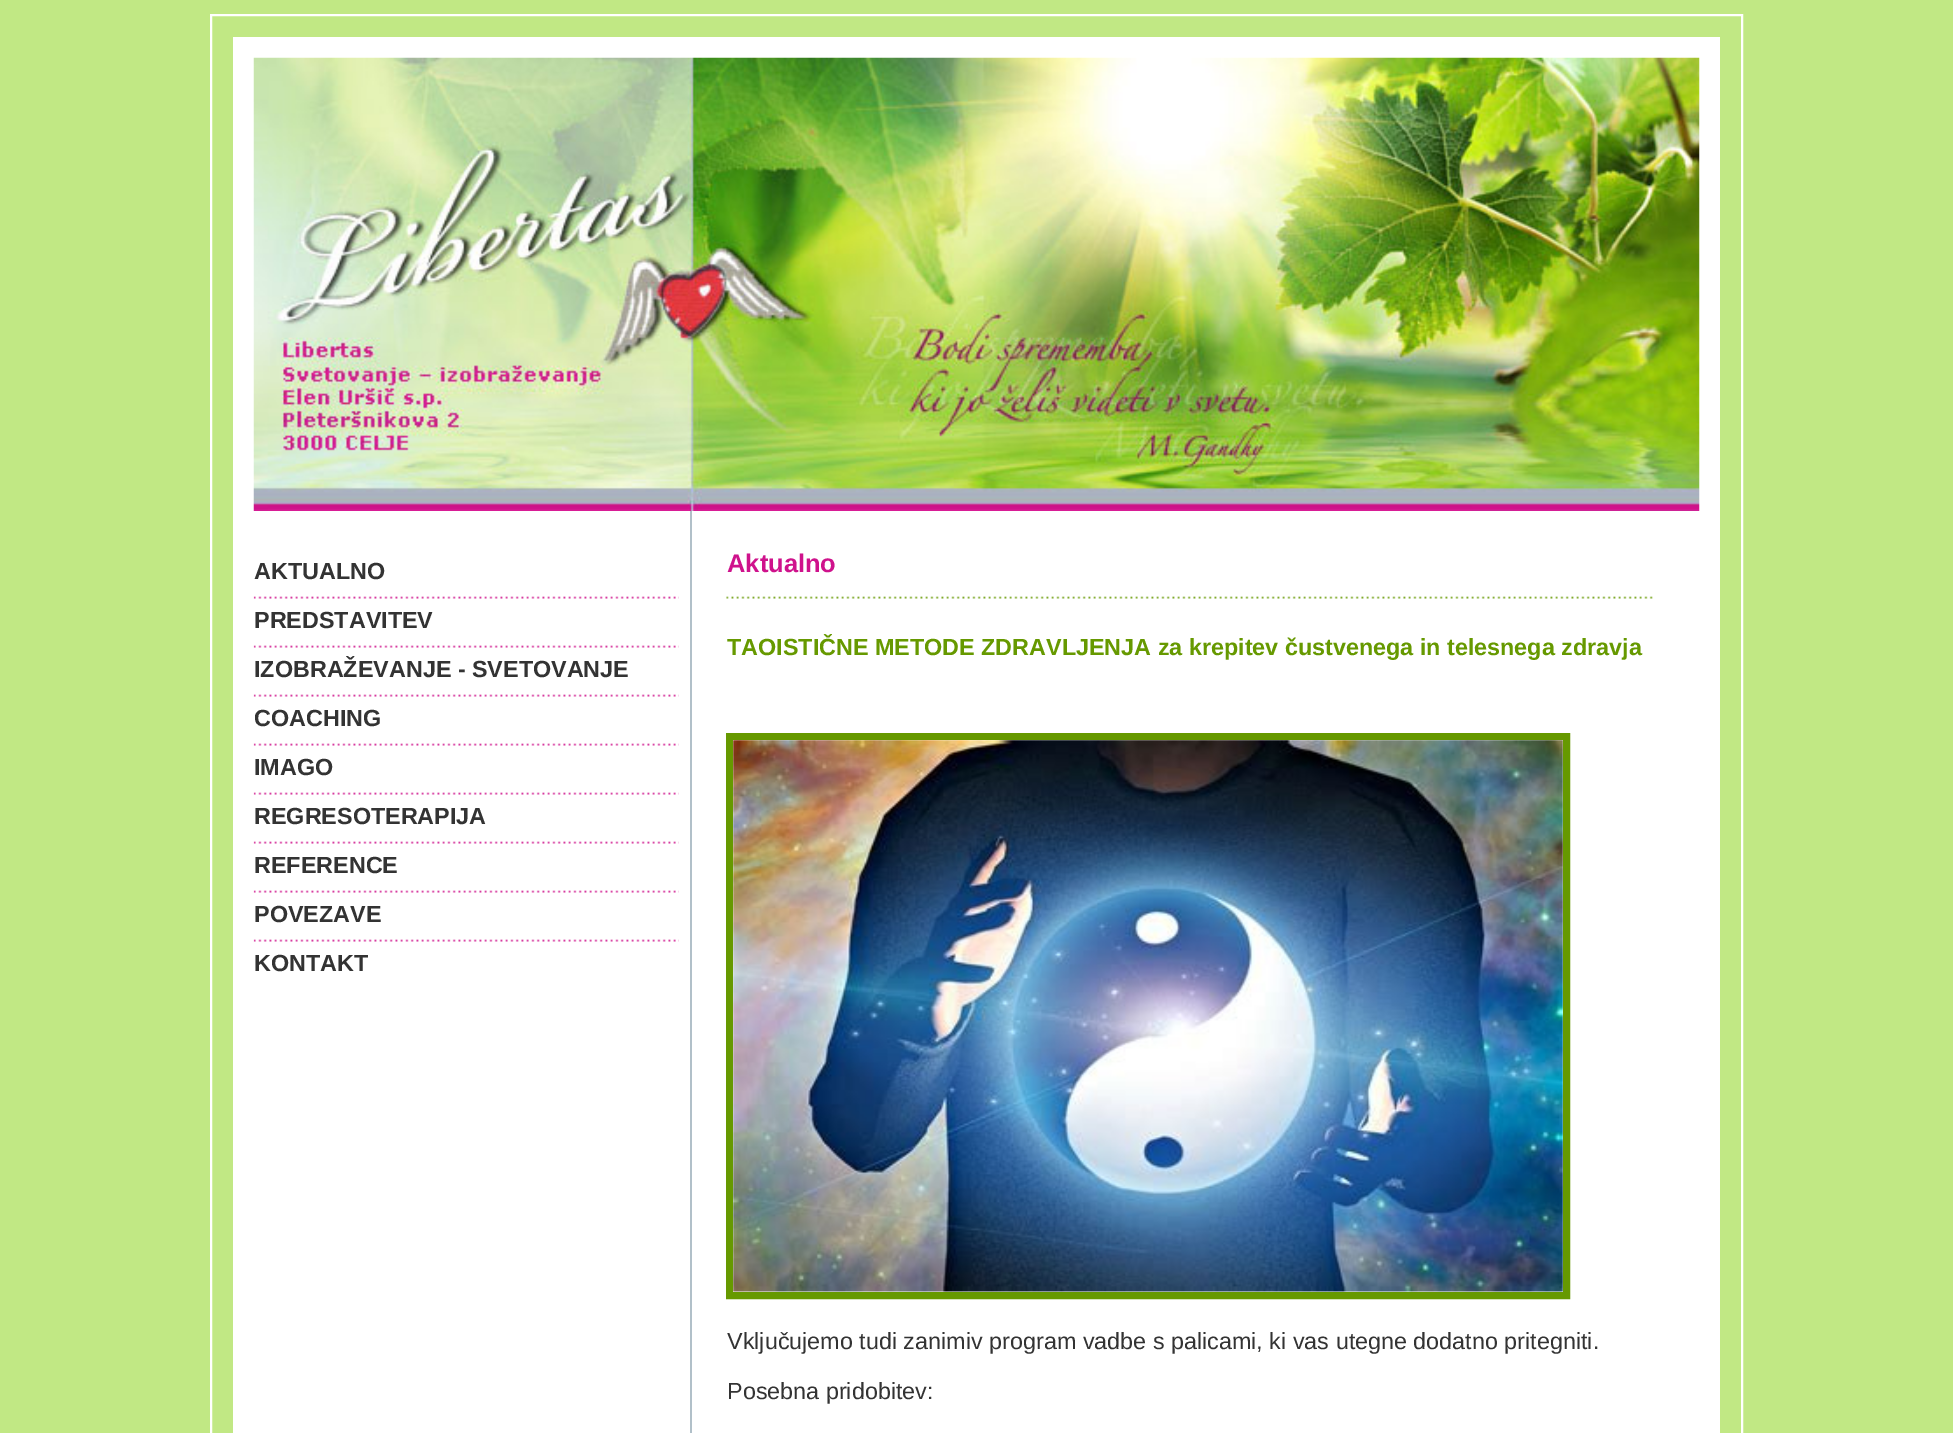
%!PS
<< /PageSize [1953 1433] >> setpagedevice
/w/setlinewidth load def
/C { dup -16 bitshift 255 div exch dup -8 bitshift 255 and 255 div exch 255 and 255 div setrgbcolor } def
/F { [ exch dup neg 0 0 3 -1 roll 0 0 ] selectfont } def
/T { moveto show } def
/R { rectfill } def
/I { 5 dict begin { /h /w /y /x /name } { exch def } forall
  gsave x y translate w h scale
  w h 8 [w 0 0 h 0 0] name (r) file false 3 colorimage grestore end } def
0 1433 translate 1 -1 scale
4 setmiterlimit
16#C1E884 C
0 0 1953 1433 R
16#FFFFFF C
2 w
211 15 1531 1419 rectstroke
233 37 1487 1396 R
(1.rgb) 253 57 1447 454 I
16#B1C0C9 C
690 511 2 922 R
/LiberationSans-Bold 23.35 F
16#333333 C
(AKTUALNO) 254 579 T
(2.rgb) 253 596 426 3 I
(PREDSTAVITEV) 254 628 T
(2.rgb) 253 645 426 3 I
(IZOBRAŽEVANJE - SVETOVANJE) 254 677 T
(2.rgb) 253 694 426 3 I
(COACHING) 254 726 T
(2.rgb) 253 743 426 3 I
(IMAGO) 254 775 T
(2.rgb) 253 792 426 3 I
(REGRESOTERAPIJA) 254 824 T
(2.rgb) 253 841 426 3 I
(REFERENCE) 254 873 T
(2.rgb) 253 890 426 3 I
(POVEZAVE) 254 922 T
(2.rgb) 253 939 426 3 I
(KONTAKT) 254 971 T
/LiberationSans-Bold 25.5 F
16#CF128C C
(Aktualno) 727 572 T
(3.rgb) 726 596 927 3 I
/LiberationSans-Bold 23.35 F
16#669900 C
(TAOISTIČNE METODE ZDRAVLJENJA za krepitev čustvenega in telesnega zdravja) 727 655 T
7 w
729.5 736.5 837 559 rectstroke
(4.rgb) 733 740 830 552 I
/LiberationSans-Regular 23.35 F
16#333333 C
(Vključujemo tudi zanimiv program vadbe s palicami, ki vas utegne dodatno pritegniti.) 727 1349 T
(Posebna pridobitev:) 727 1399 T
showpage
